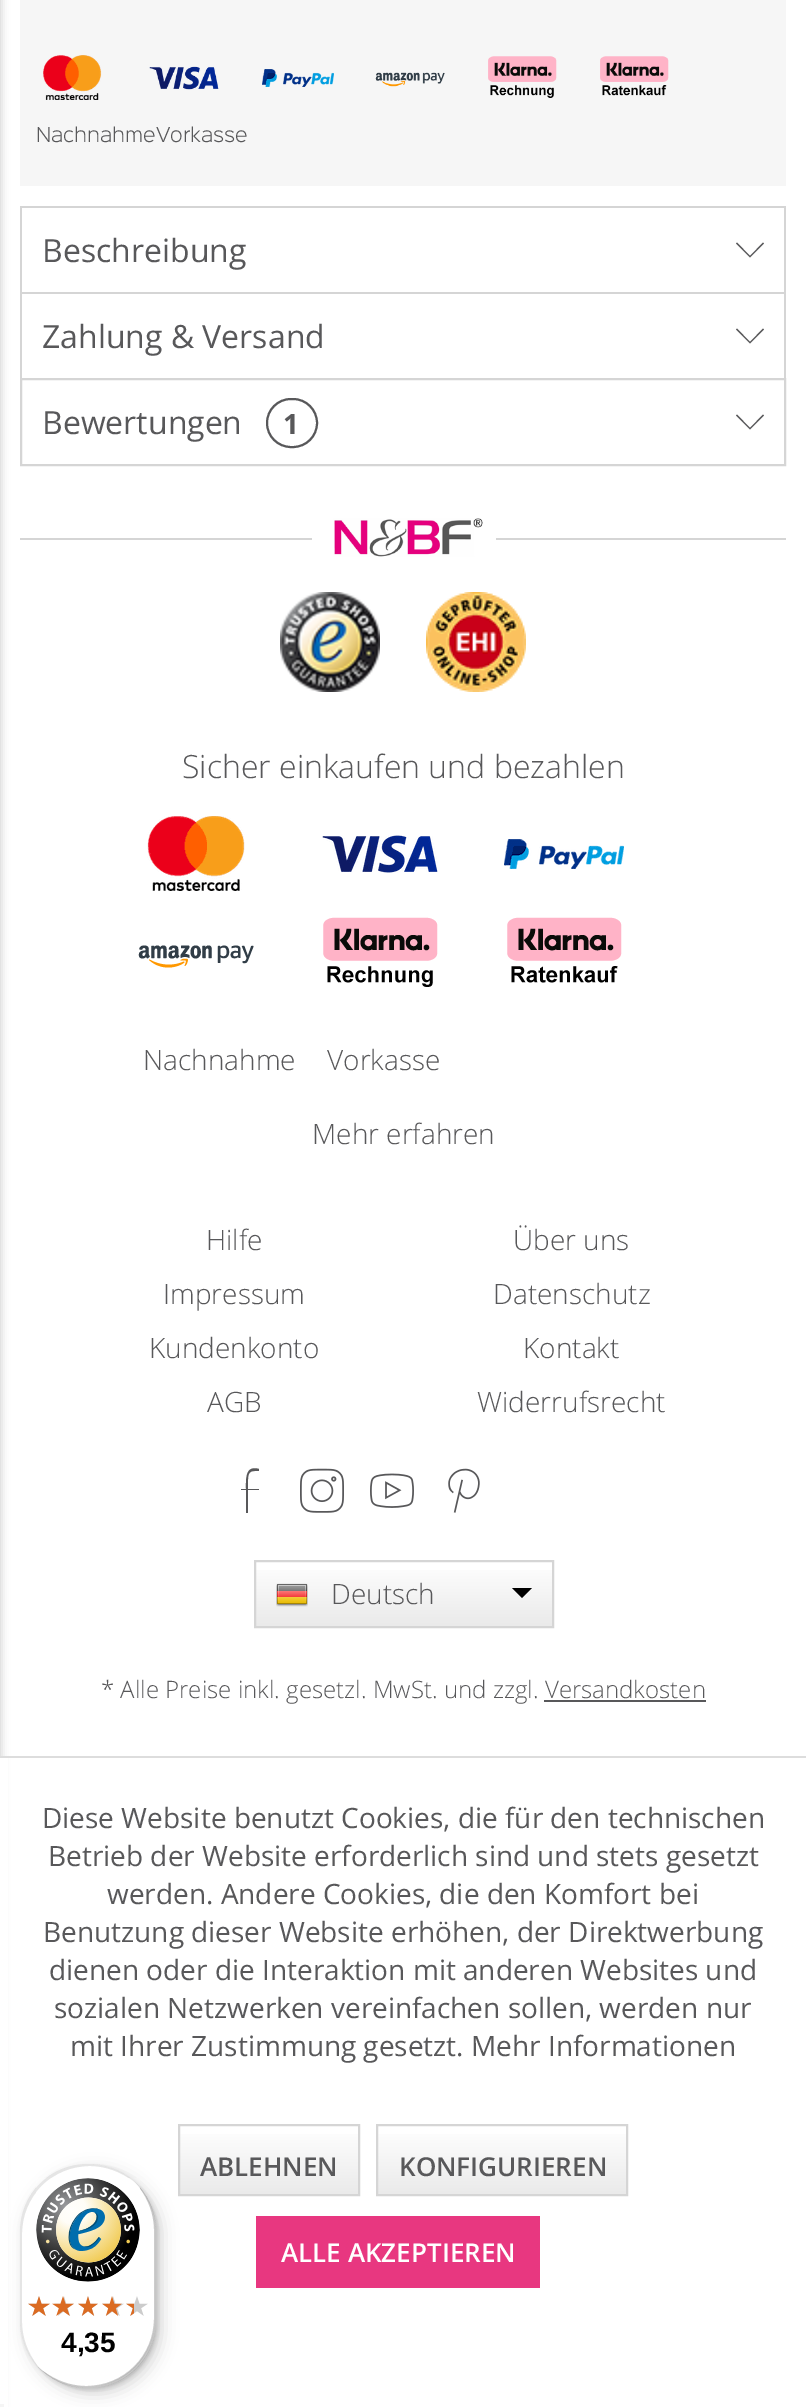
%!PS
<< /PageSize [806 2407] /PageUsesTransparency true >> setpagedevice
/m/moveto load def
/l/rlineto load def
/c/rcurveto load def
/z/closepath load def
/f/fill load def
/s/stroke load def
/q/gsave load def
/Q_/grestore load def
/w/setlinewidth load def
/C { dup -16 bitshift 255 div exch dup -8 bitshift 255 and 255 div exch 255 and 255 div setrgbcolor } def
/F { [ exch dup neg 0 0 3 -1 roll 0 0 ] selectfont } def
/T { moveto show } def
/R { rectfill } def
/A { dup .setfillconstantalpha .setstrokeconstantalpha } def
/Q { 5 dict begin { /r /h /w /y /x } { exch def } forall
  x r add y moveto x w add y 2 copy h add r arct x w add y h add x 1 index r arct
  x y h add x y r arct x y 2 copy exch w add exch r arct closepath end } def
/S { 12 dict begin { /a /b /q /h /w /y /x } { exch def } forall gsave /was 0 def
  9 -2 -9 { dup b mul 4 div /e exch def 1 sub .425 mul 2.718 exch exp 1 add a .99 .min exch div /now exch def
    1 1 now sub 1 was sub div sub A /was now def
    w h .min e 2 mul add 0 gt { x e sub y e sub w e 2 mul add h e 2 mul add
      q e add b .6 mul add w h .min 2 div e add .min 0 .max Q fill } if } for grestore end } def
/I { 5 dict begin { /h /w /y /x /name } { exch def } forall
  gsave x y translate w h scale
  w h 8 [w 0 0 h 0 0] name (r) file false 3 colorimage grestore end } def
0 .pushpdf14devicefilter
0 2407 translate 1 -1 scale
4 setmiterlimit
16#FFFFFF C
0 0 806 2407 R
16#D5D5D5 C
-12 -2 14 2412 0 4 1 S
16#F6F6F6 C
20 0 766 186 R
(1.rgb) 43 55 59 45 I
(2.rgb) 149 66 70 24 I
(3.rgb) 262 69 72 18 I
(4.rgb) 375 72 70 15 I
(5.rgb) 488 56 69 42 I
(6.rgb) 600 56 69 40 I
/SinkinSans-Light 18.4 F
16#58585A C
(NachnahmeVorkasse) 36 142 T
16#D5D5D5 C
20 206 766 2 R
784 206 2 86 R
20 206 2 86 R
/OpenSans-Regular 32 F
16#58585A C
(Beschreibung) 42 262 T
750 257.5 m -14 -14 l 1 -1 l 13 13.5 l 13 -13.5 l 1 1 l z f
16#D5D5D5 C
20 292 766 2 R
784 292 2 86 R
20 292 2 86 R
16#58585A C
(Zahlung & Versand) 42 348 T
750 343.5 m -14 -14 l 1 -1 l 13 13.5 l 13 -13.5 l 1 1 l z f
16#D5D5D5 C
2 w
21 379 764 86 rectstroke
16#58585A C
(Bewertungen) 42 434 T
267 399 50 48 24 Q s
/OpenSans-Bold 28 F
(1) 283 434 T
750 429.5 m -14 -14 l 1 -1 l 13 13.5 l 13 -13.5 l 1 1 l z f
16#D5D5D5 C
20 538 766 2 R
(7.rgb) 312 518 184 39 I
(8.rgb) 280 592 100 100 I
(9.rgb) 426 592 100 100 I
/OpenSans-Light 32 F
16#58585A C
(Sicher einkaufen und bezahlen) 182 778 T
(10.rgb) 147 816 98 75 I
(11.rgb) 322 835 116 38 I
(12.rgb) 504 839 120 30 I
(13.rgb) 138 945 116 23 I
(14.rgb) 323 917 115 70 I
(15.rgb) 507 917 115 66 I
/OpenSans-Light 28 F
(Nachnahme) 143 1070 T
(Vorkasse) 327 1070 T
(Mehr erfahren) 312 1144 T
(Hilfe) 206 1250 T
(Über uns) 513 1250 T
(Impressum) 163 1304 T
(Datenschutz) 493 1304 T
(Kundenkonto) 149 1358 T
(Kontakt) 523 1358 T
(AGB) 207 1412 T
(Widerrufsrecht) 477 1412 T
248 1480 m 0 -10 4 -9 11 -9 c 0 -2 l -14 -4 -13 10 -13 20 c -5 0 l 0 1 l 5 0 l 0 23 l 2 0 l 0 -23 l 11 0 l 0 -1 l -11 0 l z f
(16.rgb) 300 1468 44 45 I
(17.rgb) 370 1473 44 35 I
(18.rgb) 448 1468 32 45 I
q 256 1570 m 296 0 l 0 56 l -296 0 l z clip newpath
<< /ShadingType 2 /ColorSpace /DeviceRGB /Coords [404 1562 404 1626] /Extend [true true] /Function << /FunctionType 2 /Domain [0 1] /C0 [1 1 1] /C1 [.918 .918 .918] /N 1 >> >> shfill Q_
16#D5D5D5 C
255 1561 298 66 rectstroke
(19.rgb) 276 1583 32 24 I
16#58585A C
(Deutsch) 331 1604 T
16#000000 C
512 1588 m 20 0 l -10 10 l z f
/OpenSans-Light 24 F
16#58585A C
(* Alle Preise inkl. gesetzl. MwSt. und zzgl. Versandkosten) 101 1698 T
544 1700 162 2 R
16#FFFFFF C
0 1758 8 649 R
16#DDDDDD C
0 1756 806 2 R
/OpenSans-Regular 28 F
16#58585A C
(Diese Website benutzt Cookies, die für den technischen) 42 1828 T
(Betrieb der Website erforderlich sind und stets gesetzt) 48 1866 T
(werden. Andere Cookies, die den Komfort bei) 107 1904 T
(Benutzung dieser Website erhöhen, der Direktwerbung) 43 1942 T
(dienen oder die Interaktion mit anderen Websites und) 49 1980 T
(sozialen Netzwerken vereinfachen sollen, werden nur) 54 2018 T
(mit Ihrer Zustimmung gesetzt. Mehr Informationen) 70 2056 T
q 180 2134 m 178 0 l 0 60 l -178 0 l z clip newpath
<< /ShadingType 2 /ColorSpace /DeviceRGB /Coords [269 2126 269 2194] /Extend [true true] /Function << /FunctionType 2 /Domain [0 1] /C0 [1 1 1] /C1 [.918 .918 .918] /N 1 >> >> shfill Q_
16#D5D5D5 C
179 2125 180 70 rectstroke
/OpenSans-SemiBold 26 F
16#58585A C
(ABLEHNEN) 200 2176 T
q 378 2134 m 248 0 l 0 60 l -248 0 l z clip newpath
<< /ShadingType 2 /ColorSpace /DeviceRGB /Coords [502 2126 502 2194] /Extend [true true] /Function << /FunctionType 2 /Domain [0 1] /C0 [1 1 1] /C1 [.918 .918 .918] /N 1 >> >> shfill Q_
16#D5D5D5 C
377 2125 250 70 rectstroke
16#58585A C
(KONFIGURIEREN) 399 2176 T
16#E83780 C
256 2216 284 72 R
16#FFFFFF C
(ALLE AKZEPTIEREN) 281 2262 T
16#F5F5F5 C
0 2404 4 3 R
16#000000 C
26 2170 136 224 68 8 .15 S
22 2166 136 224 68 2 .15 S
16#FFFFFF C
20 2164 136 224 68 Q f
0.1 A
16#000000 C
90 2166 m 16 0 31 6 43 15 c -12 -11 -28 -17 -45 -17 c -38 0 -68 30 -68 68 c 0 88 l 0 17 6 33 17 45 c -9 -12 -15 -27 -15 -43 c 0 -88 l 0 -38 30 -68 68 -68 c z f
0.2 A
43 2371 m 12 11 28 17 45 17 c 38 0 68 -30 68 -68 c 0 -88 l 0 -17 -6 -33 -17 -45 c 9 12 15 27 15 43 c 0 88 l 0 38 -30 68 -68 68 c -16 0 -31 -6 -43 -15 c z f
16#323232 C
38 2367 m 13 13 30 21 50 21 c 38 0 68 -30 68 -68 c 0 -88 l 0 -20 -8 -37 -21 -50 c 12 13 20 30 20 49 c 0 88 l 0 37 -31 68 -68 68 c -19 0 -36 -8 -49 -20 c z f
0.3 A
16#FFFFFF C
47 2374 m 12 9 26 14 41 14 c 38 0 68 -30 68 -68 c 0 -88 l 0 -15 -5 -29 -14 -41 c 8 11 13 25 13 40 c 0 88 l 0 38 -30 68 -68 68 c -15 0 -29 -5 -40 -13 c z f
1 A
(20.rgb) 36 2178 104 104 I
(21.rgb) 28 2296 22 20 I
(22.rgb) 54 2296 20 20 I
(23.rgb) 78 2296 20 20 I
(24.rgb) 102 2296 22 20 I
(24.rgb) 126 2296 22 20 I
(25.rgb) 28 2296 22 20 I
(26.rgb) 52 2296 22 20 I
(27.rgb) 78 2296 20 20 I
(28.rgb) 102 2296 20 20 I
(29.rgb) 126 2303 8 13 I
/LiberationSans-Bold 28 F
16#000000 C
(4,35) 61 2352 T
.poppdf14devicefilter showpage
